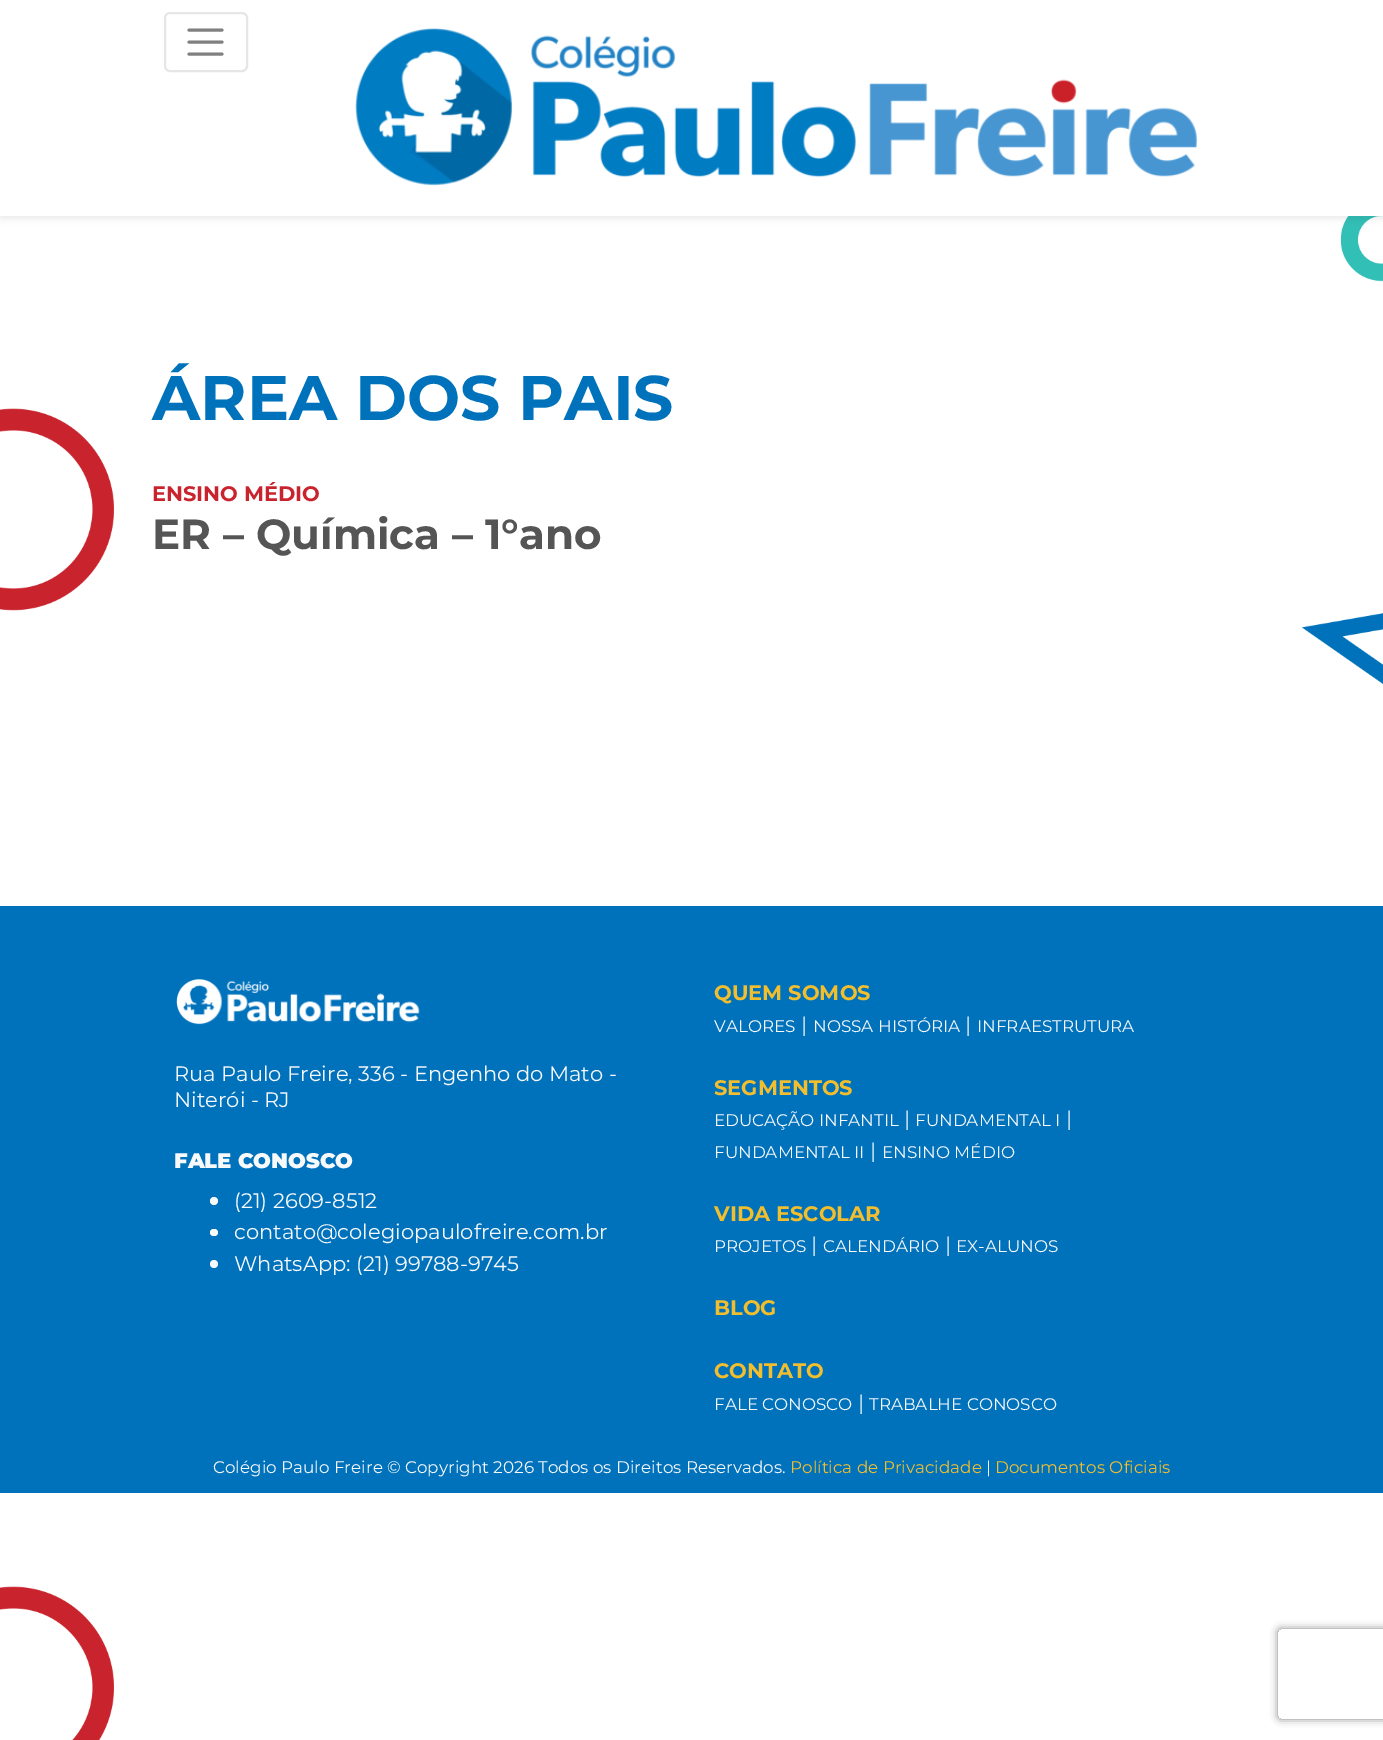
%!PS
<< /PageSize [1383 1740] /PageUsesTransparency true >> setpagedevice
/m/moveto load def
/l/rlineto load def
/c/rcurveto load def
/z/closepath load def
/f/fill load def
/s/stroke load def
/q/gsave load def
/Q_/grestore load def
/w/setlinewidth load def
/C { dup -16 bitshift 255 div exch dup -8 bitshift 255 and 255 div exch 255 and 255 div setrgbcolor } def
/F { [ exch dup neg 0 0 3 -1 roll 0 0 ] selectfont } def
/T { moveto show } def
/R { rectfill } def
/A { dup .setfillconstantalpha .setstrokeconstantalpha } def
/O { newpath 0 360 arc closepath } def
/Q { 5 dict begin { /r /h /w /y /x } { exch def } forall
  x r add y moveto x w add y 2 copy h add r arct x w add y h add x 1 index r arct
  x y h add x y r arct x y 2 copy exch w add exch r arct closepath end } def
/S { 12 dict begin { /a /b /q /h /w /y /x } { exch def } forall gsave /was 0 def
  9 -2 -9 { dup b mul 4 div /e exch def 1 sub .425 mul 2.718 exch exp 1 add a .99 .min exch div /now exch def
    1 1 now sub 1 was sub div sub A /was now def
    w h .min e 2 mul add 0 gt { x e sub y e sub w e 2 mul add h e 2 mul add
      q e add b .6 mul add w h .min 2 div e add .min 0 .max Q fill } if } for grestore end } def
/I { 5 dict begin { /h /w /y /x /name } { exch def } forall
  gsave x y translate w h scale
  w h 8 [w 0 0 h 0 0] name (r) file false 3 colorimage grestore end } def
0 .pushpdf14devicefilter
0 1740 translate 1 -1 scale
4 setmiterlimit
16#FFFFFF C
0 0 1383 1740 R
(1.rgb) 0 216 1383 1524 I
16#000000 C
0 3 1383 216 0 3 .07 S
16#FFFFFF C
0 0 1383 216 R
16#E6E6E6 C
2 w
165 13 82 58 5 Q s
16#808080 C
3 w
1 setlinecap
189 30 m 33 0 l 189 42 m 33 0 l 189 54 m 33 0 l s
(2.rgb) 355 28 843 158 I
/Montserrat-Bold 63 F
16#0072BC C
(ÁREA DOS PAIS) 152 420 T
/Montserrat-Bold 21 F
16#C9242D C
(ENSINO MÉDIO) 152 501 T
/Montserrat-Bold 42 F
16#555555 C
(ER – Química – 1°ano) 152 549 T
16#0072BC C
0 906 1383 587 R
(3.rgb) 176 979 244 46 I
/Montserrat-Regular 21 F
16#F8F9FA C
(Rua Paulo Freire, 336 - Engenho do Mato -) 174 1081 T
(Niterói - RJ) 174 1107 T
/Montserrat-Black 21 F
(FALE CONOSCO) 174 1168 T
214 1201 4 O f
/Montserrat-Regular 21 F
(\(21\) 2609-8512) 234 1208 T
210 1229 8 7 3.5 Q f
(contato@colegiopaulofreire.com.br) 234 1239 T
214 1264 4 O f
(WhatsApp: \(21\) 99788-9745) 234 1271 T
/Montserrat-Bold 21 F
16#F2BE2E C
(QUEM SOMOS) 714 1000 T
/Montserrat-Regular 16.8 F
16#F8F9FA C
(VALORES) 714 1032 T
/Montserrat-Regular 21 F
(|) 801 1032 T
/Montserrat-Regular 16.8 F
(NOSSA HISTÓRIA) 813 1032 T
/Montserrat-Regular 21 F
(|) 965 1032 T
/Montserrat-Regular 16.8 F
(INFRAESTRUTURA) 977 1032 T
/Montserrat-Bold 21 F
16#F2BE2E C
(SEGMENTOS) 714 1095 T
/Montserrat-Regular 16.8 F
16#F8F9FA C
(EDUCAÇÃO INFANTIL) 714 1126 T
/Montserrat-Regular 21 F
(|) 904 1126 T
/Montserrat-Regular 16.8 F
(FUNDAMENTAL I) 915 1126 T
/Montserrat-Regular 21 F
(|) 1066 1126 T
/Montserrat-Regular 16.8 F
(FUNDAMENTAL II) 714 1158 T
/Montserrat-Regular 21 F
(|) 870 1158 T
/Montserrat-Regular 16.8 F
(ENSINO MÉDIO) 882 1158 T
/Montserrat-Bold 21 F
16#F2BE2E C
(VIDA ESCOLAR) 714 1221 T
/Montserrat-Regular 16.8 F
16#F8F9FA C
(PROJETOS) 714 1252 T
/Montserrat-Regular 21 F
(|) 811 1252 T
/Montserrat-Regular 16.8 F
(CALENDÁRIO) 823 1252 T
/Montserrat-Regular 21 F
(|) 945 1252 T
/Montserrat-Regular 16.8 F
(EX-ALUNOS) 956 1252 T
/Montserrat-Bold 21 F
16#F2BE2E C
(BLOG) 714 1315 T
(CONTATO) 714 1378 T
/Montserrat-Regular 16.8 F
16#F8F9FA C
(FALE CONOSCO) 714 1410 T
/Montserrat-Regular 21 F
(|) 858 1410 T
/Montserrat-Regular 16.8 F
(TRABALHE CONOSCO) 869 1410 T
(Colégio Paulo Freire © Copyright 2026 Todos os Direitos Reservados.) 213 1473 T
16#F2BE2E C
(Política de Privacidade) 790 1473 T
16#F8F9FA C
(|) 986 1473 T
16#F2BE2E C
(Documentos Oficiais) 995 1473 T
q
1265 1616 m 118 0 l 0 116 l -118 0 l z 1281 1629 m 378 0 l 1.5 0 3 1.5 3 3 c 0 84 l 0 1.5 -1.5 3 -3 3 c -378 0 l -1.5 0 -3 -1.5 -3 -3 c 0 -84 l 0 -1.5 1.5 -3 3 -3 c z eoclip newpath
16#808080 C
1278 1629 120 90 3 4 1 S
Q_
.poppdf14devicefilter showpage
